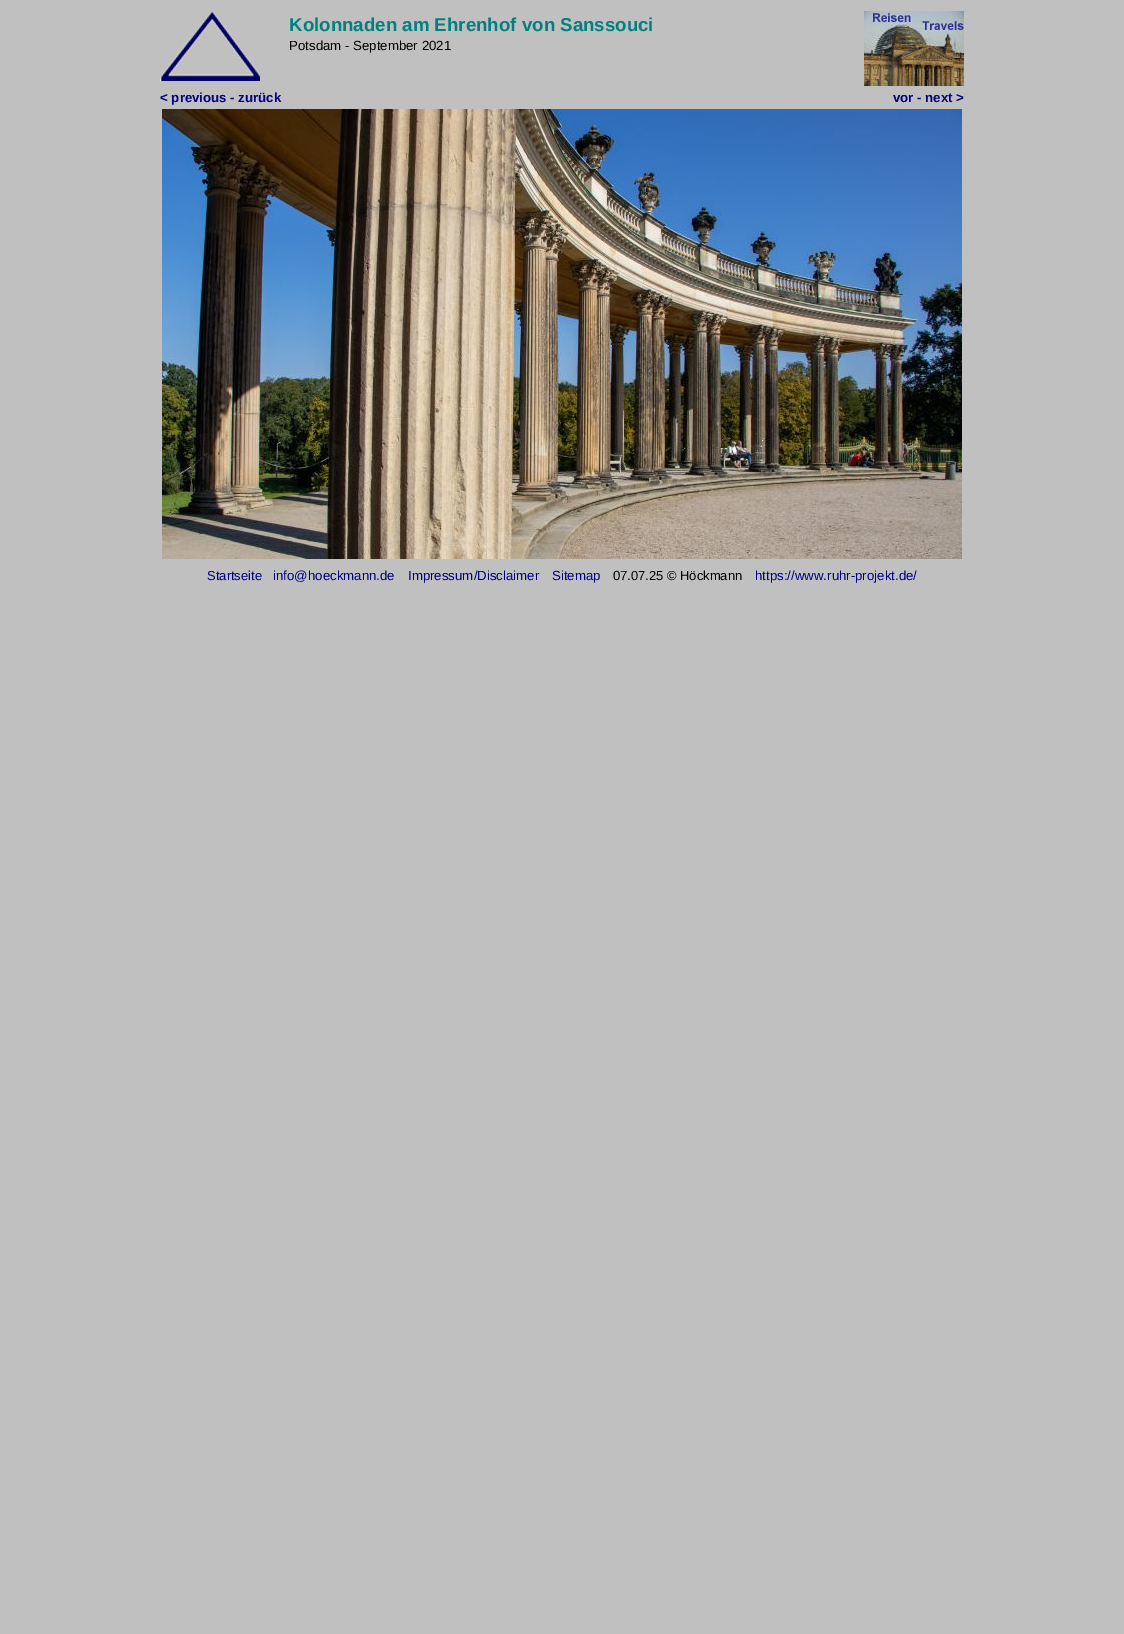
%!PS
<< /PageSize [1124 1634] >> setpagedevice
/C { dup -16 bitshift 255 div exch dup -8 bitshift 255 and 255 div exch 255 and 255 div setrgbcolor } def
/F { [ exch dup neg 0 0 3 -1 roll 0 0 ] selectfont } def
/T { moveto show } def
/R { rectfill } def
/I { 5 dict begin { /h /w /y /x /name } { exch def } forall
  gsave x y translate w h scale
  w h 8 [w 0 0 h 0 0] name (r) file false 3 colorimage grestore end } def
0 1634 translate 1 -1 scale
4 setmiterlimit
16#C0C0C0 C
0 0 1124 1634 R
(1.rgb) 160 12 100 69 I
/LiberationSans-Bold 18.7 F
16#008080 C
(Kolonnaden am Ehrenhof von Sanssouci) 289 31 T
/LiberationSans-Regular 13.25 F
16#000000 C
(Potsdam - September 2021) 289 50 T
(2.rgb) 864 11 100 75 I
/LiberationSans-Bold 13.25 F
16#000080 C
(< previous - zurück) 160 102 T
(vor - next >) 893 102 T
(3.rgb) 162 109 800 450 I
/LiberationSans-Regular 13 F
(Startseite) 207 580 T
/LiberationSans-Regular 13.25 F
(info@hoeckmann.de) 273 580 T
(Impressum/Disclaimer) 408 580 T
(Sitemap) 552 580 T
16#000000 C
(07) 613 580 T
/LiberationSans-Regular 13 F
(.07.25 © Höckmann) 627 580 T
/LiberationSans-Regular 13.25 F
16#000080 C
(https://www.ruhr-projekt.de/) 755 580 T
showpage
